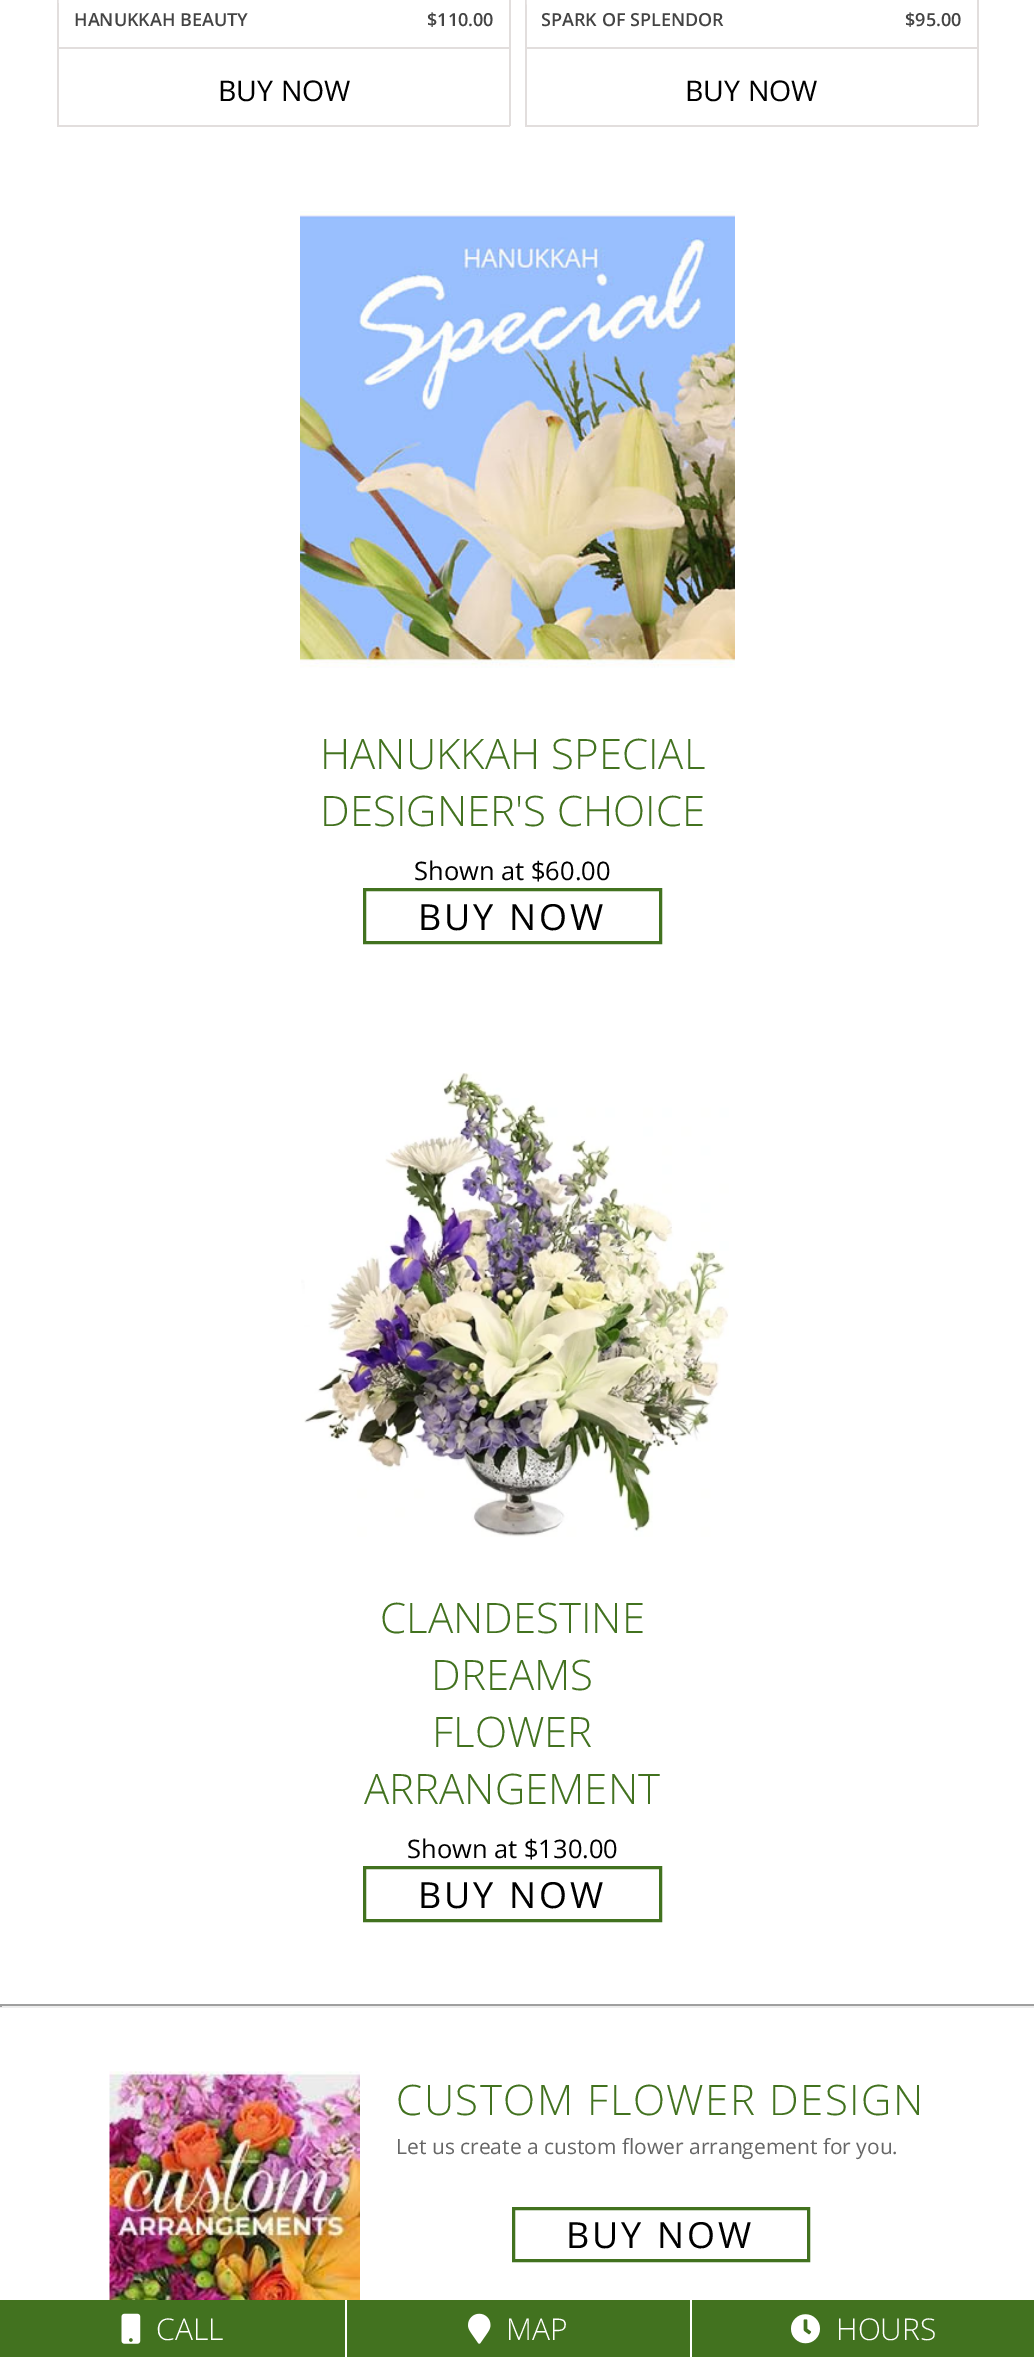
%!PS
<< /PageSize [1034 2357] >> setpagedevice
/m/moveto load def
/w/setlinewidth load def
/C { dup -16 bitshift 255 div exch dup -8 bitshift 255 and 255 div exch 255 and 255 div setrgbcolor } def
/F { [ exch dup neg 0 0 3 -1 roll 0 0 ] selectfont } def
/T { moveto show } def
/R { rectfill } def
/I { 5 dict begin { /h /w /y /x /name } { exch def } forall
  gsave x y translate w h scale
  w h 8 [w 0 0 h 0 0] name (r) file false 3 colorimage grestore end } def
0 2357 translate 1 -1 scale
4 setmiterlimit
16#FFFFFF C
0 0 1034 2357 R
16#E2DEDD C
509 0 2 126 R
57 125 453 2 R
57 0 2 126 R
16#E9E6E6 C
58 0 1 3 R
/OpenSans-SemiBold 18 F
16#444444 C
(HANUKKAH BEAUTY) 74 26 T
($110.00) 427 26 T
16#E2DEDD C
59 47 450 2 R
/OpenSans-Regular 28.5 F
16#000000 C
(BUY NOW) 218 101 T
16#E2DEDD C
977 0 2 126 R
525 125 453 2 R
525 0 2 126 R
(1.rgb) 526 0 1 5 I
/OpenSans-SemiBold 18 F
16#444444 C
(SPARK OF SPLENDOR) 541 26 T
($95.00) 905 26 T
16#E2DEDD C
527 47 450 2 R
/OpenSans-Regular 28.5 F
16#000000 C
(BUY NOW) 685 101 T
(2.rgb) 300 211 435 457 I
/OpenSans-Light 42 F
16#42721F C
(HANUKKAH SPECIAL) 320 769 T
(DESIGNER'S CHOICE) 320 826 T
/OpenSans-Regular 25.5 F
16#000000 C
(Shown at $60.00) 414 880 T
16#42721F C
3 w
364.5 889.5 296 53 rectstroke
/OpenSans-Regular 36 F
16#000000 C
418 930 m 3 0 (BUY NOW) ashow
(3.rgb) 301 1072 428 465 I
/OpenSans-Light 42 F
16#42721F C
(CLANDESTINE) 380 1633 T
(DREAMS) 431 1690 T
(FLOWER) 432 1747 T
(ARRANGEMENT) 364 1804 T
/OpenSans-Regular 25.5 F
16#000000 C
(Shown at $130.00) 407 1858 T
16#42721F C
364.5 1867.5 296 53 rectstroke
/OpenSans-Regular 36 F
16#000000 C
418 1908 m 3 0 (BUY NOW) ashow
16#9F9F9F C
0 2004 1034 2 R
16#EEEEEE C
0 2006 1034 2 R
16#9F9F9F C
0 2004 2 3 R
(4.rgb) 109 2071 251 229 I
/OpenSans-Light 42 F
16#42721F C
396 2115 m 1.5 0 (CUSTOM FLOWER DESIGN) ashow
/OpenSans-Regular 21 F
16#666666 C
(Let us create a custom flower arrangement for you.) 396 2154 T
16#42721F C
513.5 2208.5 295 52 rectstroke
/OpenSans-Regular 36 F
16#000000 C
566 2248 m 3 0 (BUY NOW) ashow
16#42721F C
0 2300 345 57 R
(5.rgb) 121 2313 20 31 I
/OpenSans-Light 30 F
16#FFFFFF C
(CALL) 156 2340 T
16#42721F C
347 2300 343 57 R
(6.rgb) 468 2313 23 31 I
16#FFFFFF C
(MAP) 506 2340 T
16#42721F C
692 2300 342 57 R
(7.rgb) 791 2314 29 30 I
16#FFFFFF C
(HOURS) 836 2340 T
showpage
